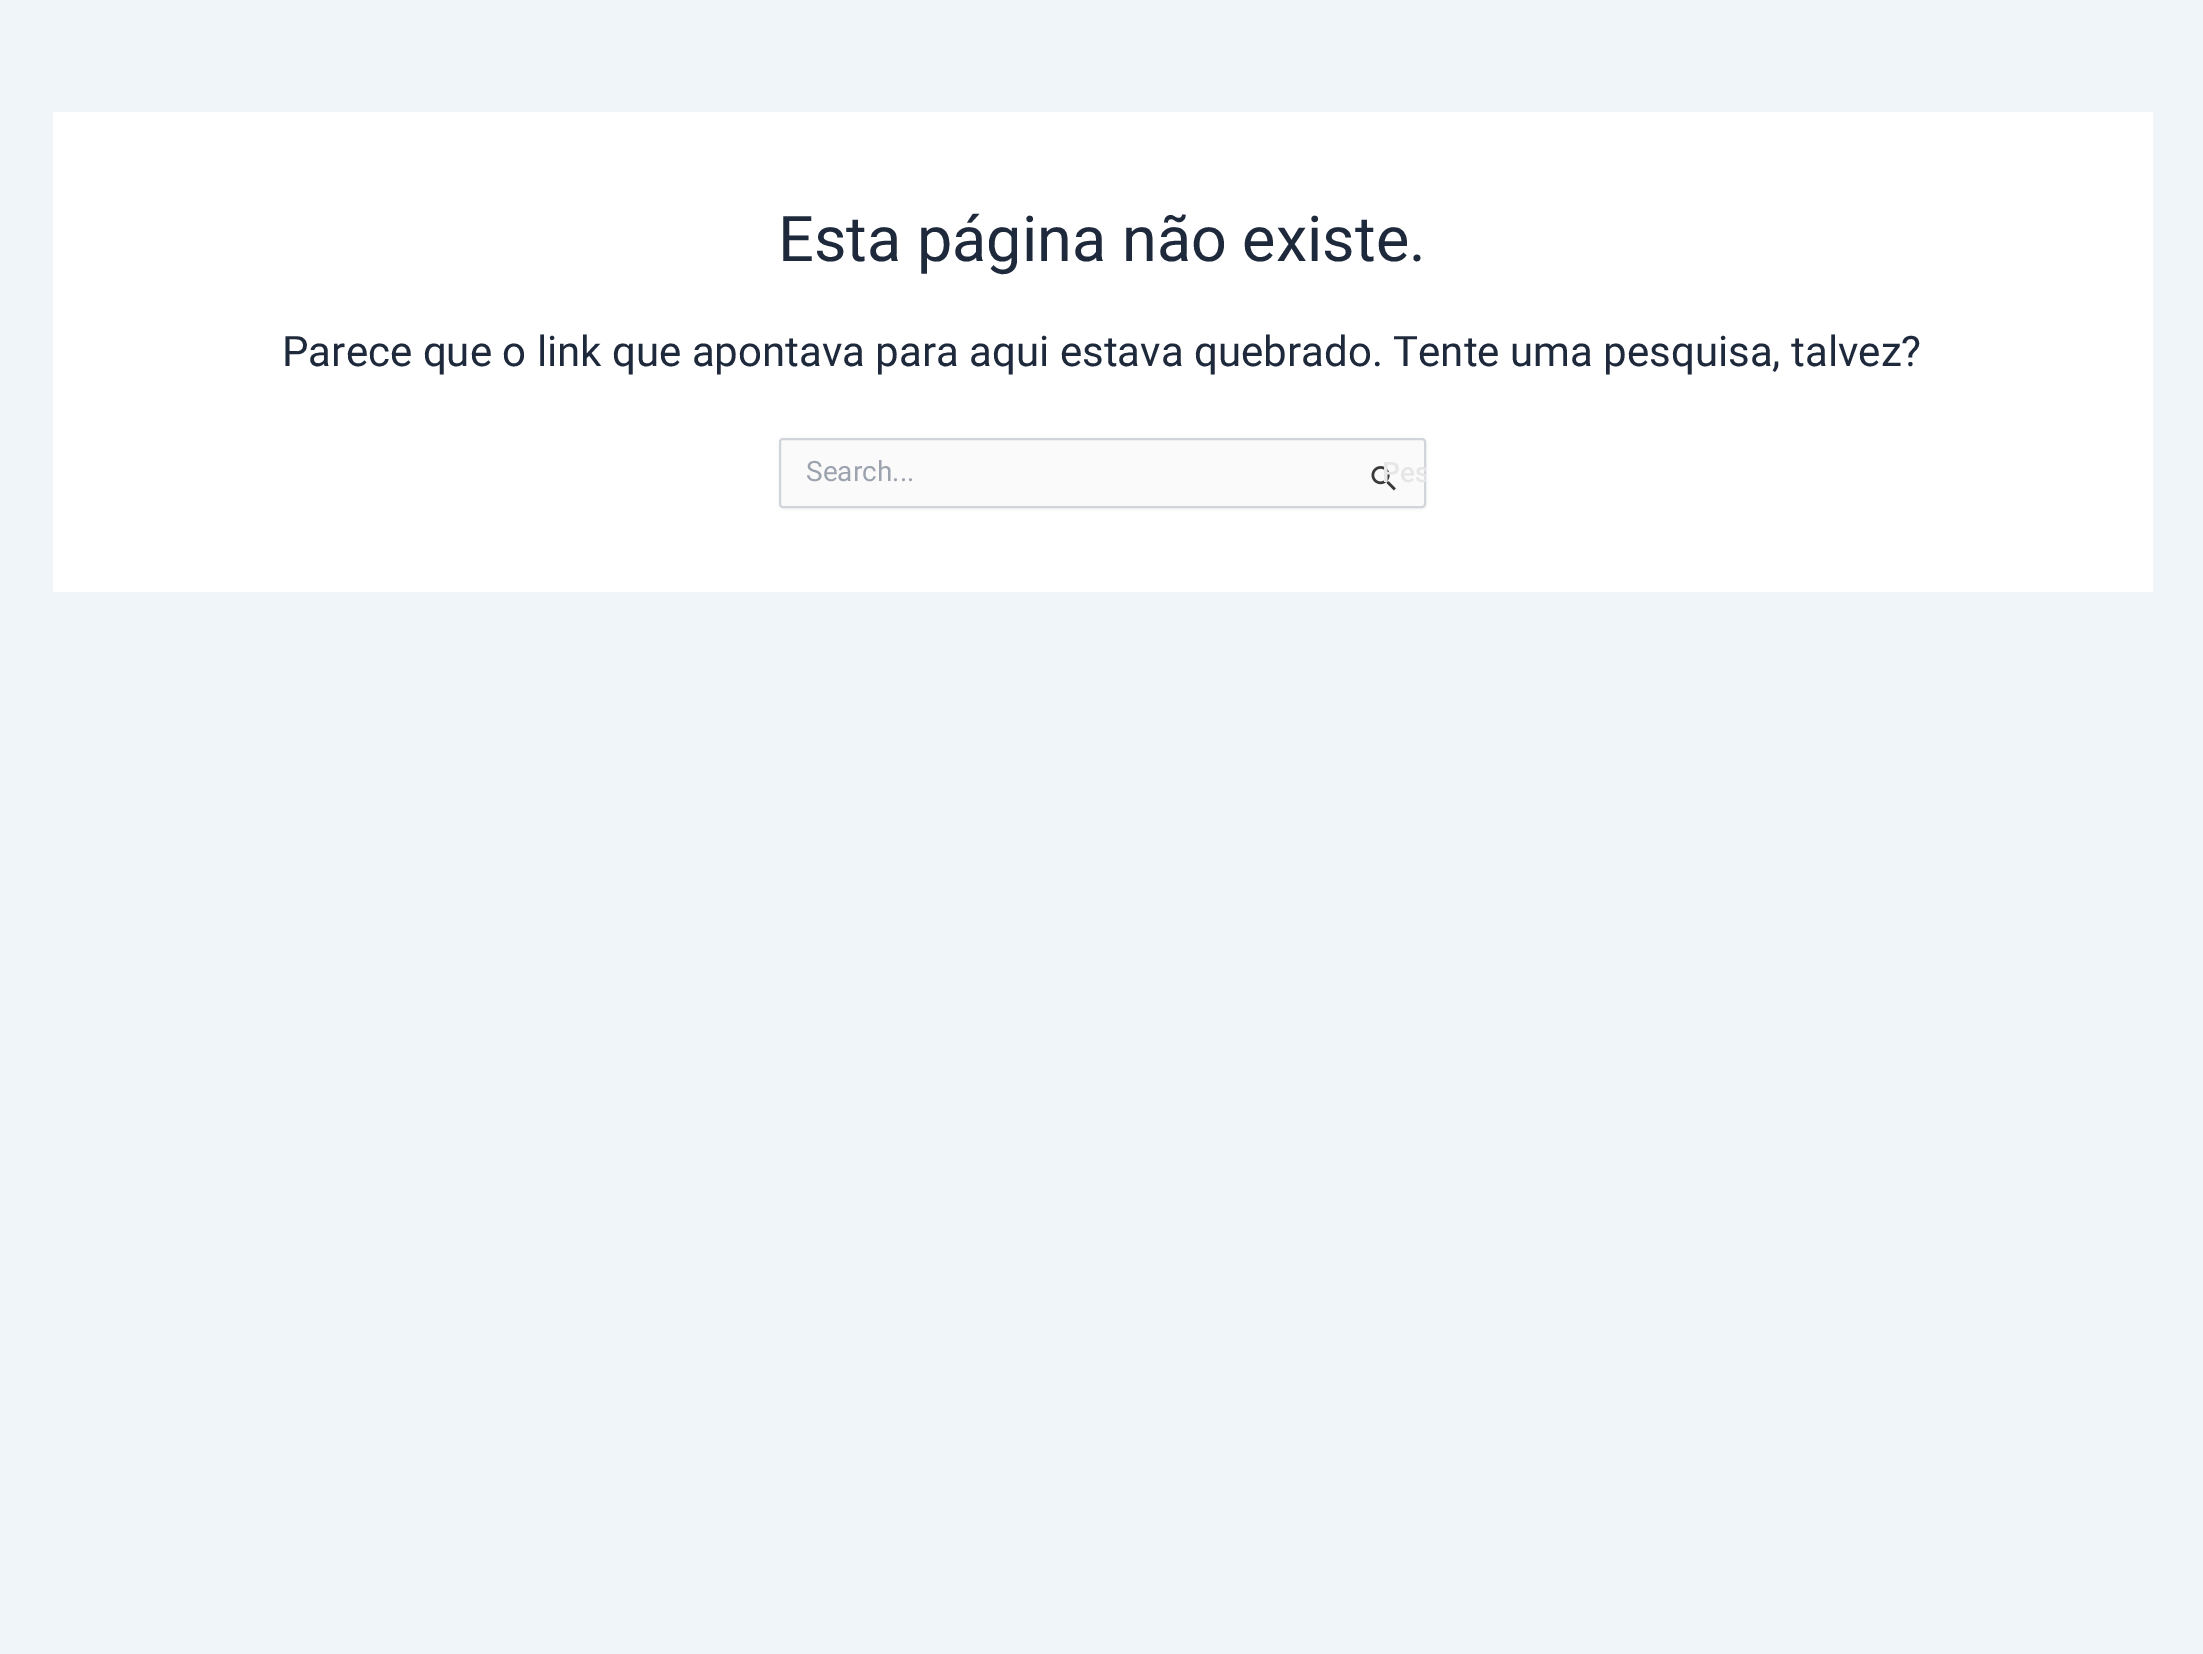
%!PS
<< /PageSize [2203 1654] /PageUsesTransparency true >> setpagedevice
/f/fill load def
/s/stroke load def
/q/gsave load def
/Q_/grestore load def
/w/setlinewidth load def
/C { dup -16 bitshift 255 div exch dup -8 bitshift 255 and 255 div exch 255 and 255 div setrgbcolor } def
/F { [ exch dup neg 0 0 3 -1 roll 0 0 ] selectfont } def
/T { moveto show } def
/R { rectfill } def
/A { dup .setfillconstantalpha .setstrokeconstantalpha } def
/Q { 5 dict begin { /r /h /w /y /x } { exch def } forall
  x r add y moveto x w add y 2 copy h add r arct x w add y h add x 1 index r arct
  x y h add x y r arct x y 2 copy exch w add exch r arct closepath end } def
/S { 12 dict begin { /a /b /q /h /w /y /x } { exch def } forall gsave /was 0 def
  9 -2 -9 { dup b mul 4 div /e exch def 1 sub .425 mul 2.718 exch exp 1 add a .99 .min exch div /now exch def
    1 1 now sub 1 was sub div sub A /was now def
    w h .min e 2 mul add 0 gt { x e sub y e sub w e 2 mul add h e 2 mul add
      q e add b .6 mul add w h .min 2 div e add .min 0 .max Q fill } if } for grestore end } def
/I { 5 dict begin { /h /w /y /x /name } { exch def } forall
  gsave x y translate w h scale
  w h 8 [w 0 0 h 0 0] name (r) file false 3 colorimage grestore end } def
0 .pushpdf14devicefilter
0 1654 translate 1 -1 scale
4 setmiterlimit
16#F0F5FA C
0 0 2203 1654 R
16#FFFFFF C
53 112 2100 480 R
/Roboto-Regular 63 F
16#1E293B C
(Esta página não existe.) 778 261 T
/Roboto-Regular 42 F
(Parece que o link que apontava para aqui estava quebrado. Tente uma pesquisa, talvez?) 282 366 T
16#000000 C
779 439 647 70 4 2 .05 S
16#FAFAFA C
780 439 645 68 3 Q q f Q_
16#D1D5DB C
2 w
s
/Roboto-Regular 28 F
16#9CA3AF C
(Search...) 806 481 T
(1.rgb) 1371 466 25 25 I
q
1348 438 78 73 4 Q clip newpath
/Roboto-Medium 28 F
16#E6E6E6 C
(Pes) 1382 482 T
Q_
.poppdf14devicefilter showpage
